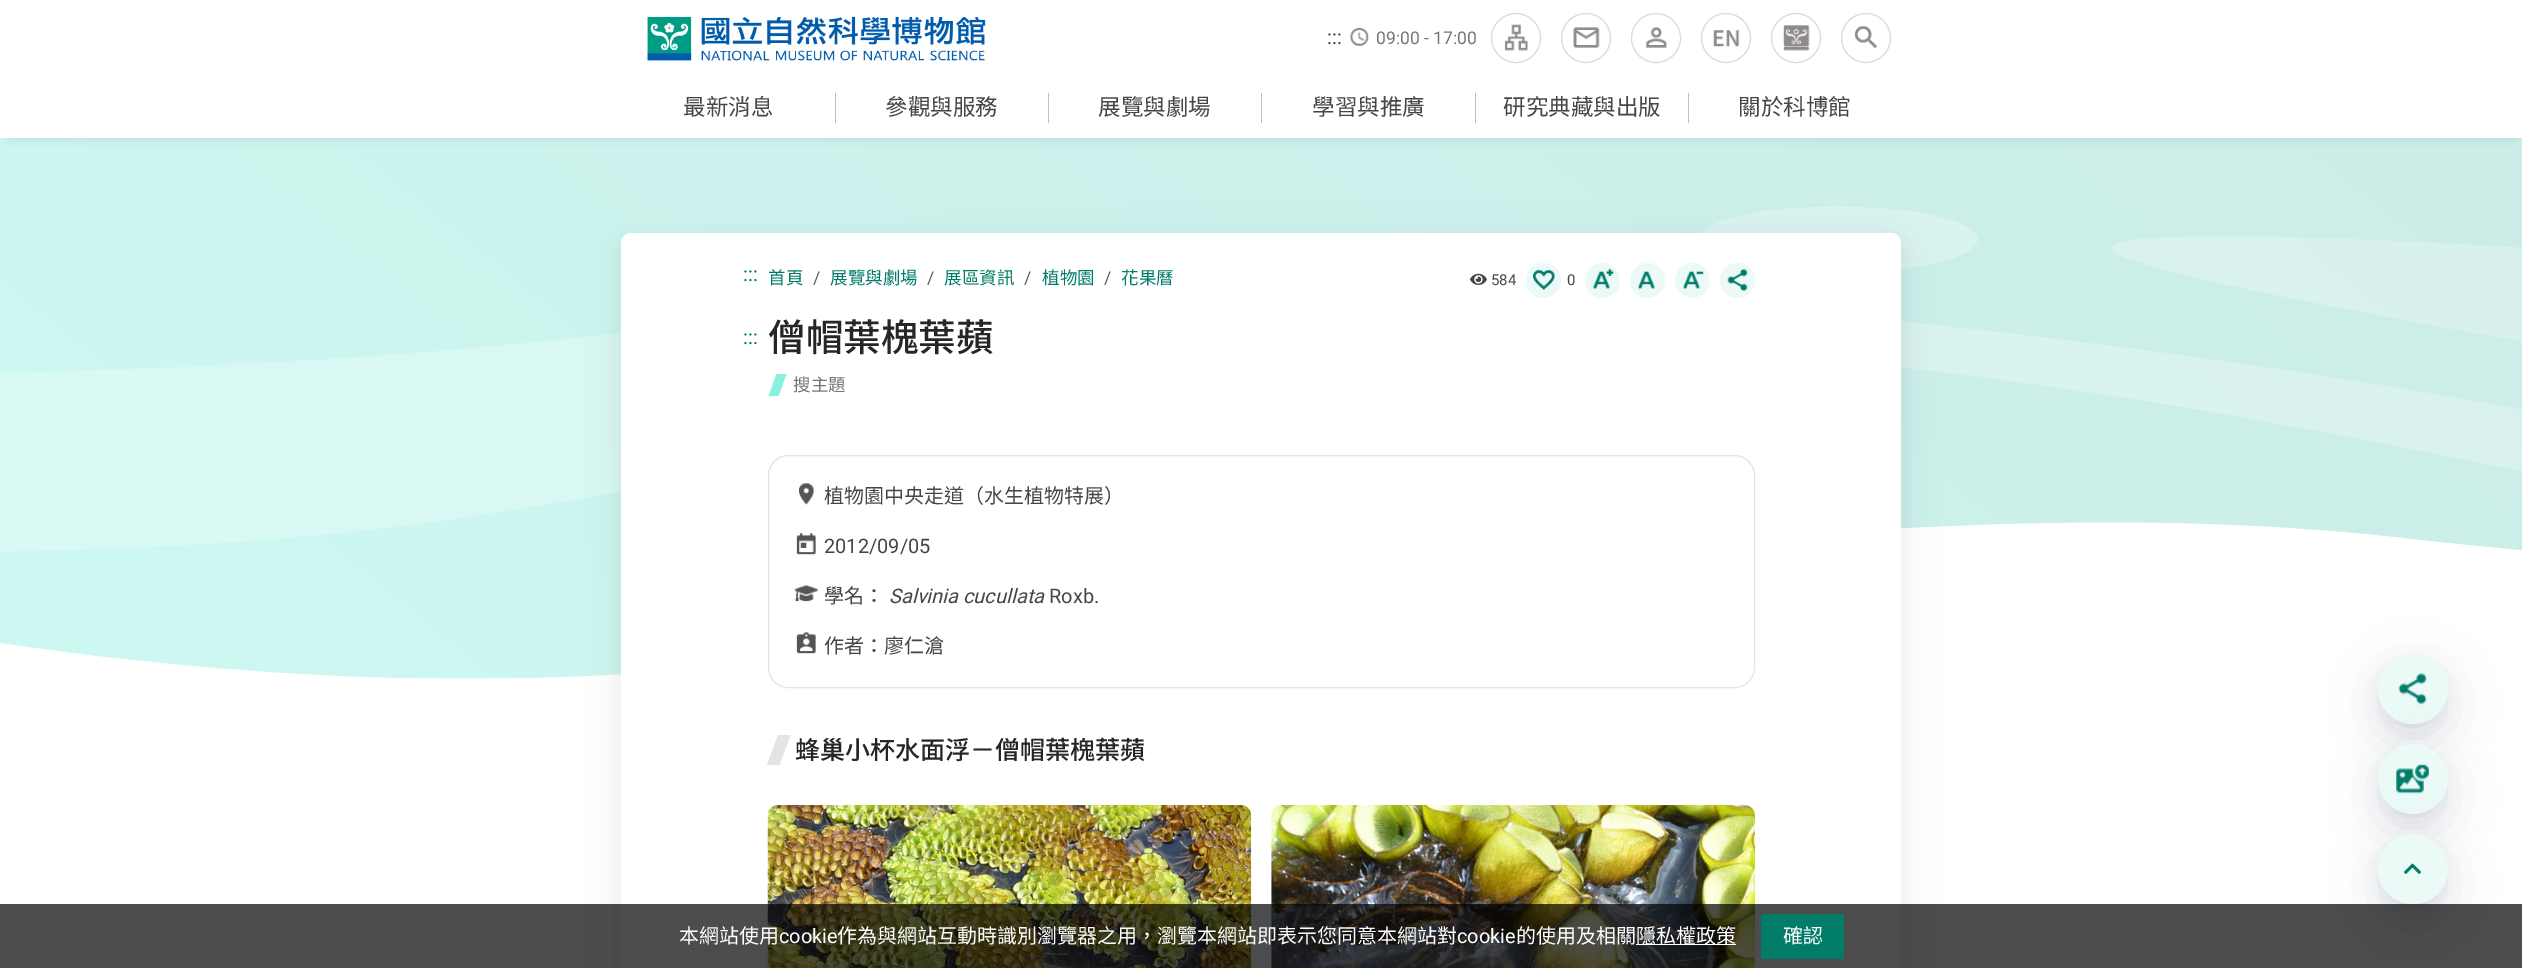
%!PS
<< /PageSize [2522 968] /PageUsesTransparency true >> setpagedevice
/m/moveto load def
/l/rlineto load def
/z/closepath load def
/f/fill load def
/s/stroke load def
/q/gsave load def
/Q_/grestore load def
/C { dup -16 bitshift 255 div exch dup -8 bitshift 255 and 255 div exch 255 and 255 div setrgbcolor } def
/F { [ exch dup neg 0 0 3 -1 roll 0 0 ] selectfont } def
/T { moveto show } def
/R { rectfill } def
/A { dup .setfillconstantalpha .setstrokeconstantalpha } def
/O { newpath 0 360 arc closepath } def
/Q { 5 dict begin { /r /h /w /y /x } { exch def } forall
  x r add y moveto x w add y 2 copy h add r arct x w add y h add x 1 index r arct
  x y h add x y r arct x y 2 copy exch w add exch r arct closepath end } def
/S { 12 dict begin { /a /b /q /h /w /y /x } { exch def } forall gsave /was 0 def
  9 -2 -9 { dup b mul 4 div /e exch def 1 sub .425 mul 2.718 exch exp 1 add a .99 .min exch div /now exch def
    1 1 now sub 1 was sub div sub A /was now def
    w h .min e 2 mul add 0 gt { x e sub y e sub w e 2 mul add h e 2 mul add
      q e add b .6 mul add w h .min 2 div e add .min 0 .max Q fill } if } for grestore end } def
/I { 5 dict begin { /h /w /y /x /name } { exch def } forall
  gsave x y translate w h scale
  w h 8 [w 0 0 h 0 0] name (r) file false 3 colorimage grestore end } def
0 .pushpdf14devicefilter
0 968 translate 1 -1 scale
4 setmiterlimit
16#FFFFFF C
0 0 2522 968 R
(1.rgb) 647 16 339 45 I
(9.rgb) 0 138 2522 541 I
q
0 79 m 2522 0 l 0 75 l -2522 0 l z 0 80 m 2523 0 l 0 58 l -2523 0 l z eoclip newpath
16#18274B C
8 95 2507 43 0 5 .12 S
Q_
/Roboto-Regular 20 F
16#464646 C
(:::) 1327 44 T
(2.rgb) 1350 28 19 18 I
/Roboto-Regular 17.5 F
16#757575 C
(09:00 - 17:00) 1376 44 T
(3.rgb) 1505 24 23 27 I
16#D9D9D9 C
1516 38 24.5 O s
(4.rgb) 1573 27 27 21 I
1586 38 24.5 O s
(5.rgb) 1646 27 21 21 I
1656 38 24.5 O s
(6.rgb) 1713 30 27 17 I
1726 38 24.5 O s
(7.rgb) 1783 25 27 26 I
1796 38 24.5 O s
(8.rgb) 1855 26 23 23 I
1866 38 24.5 O s
16#FFFFFF C
621 137 1280 1 R
/NotoSansTC-Regular 22.5 F
16#464646 C
(最新消息) 683 115 T
16#BFBFBF C
835 93 1 30 R
16#464646 C
(參觀與服務) 885 115 T
16#BFBFBF C
1048 93 1 30 R
16#464646 C
(展覽與劇場) 1098 115 T
16#BFBFBF C
1261 93 1 30 R
16#464646 C
(學習與推廣) 1312 115 T
16#BFBFBF C
1475 93 1 30 R
16#464646 C
(研究典藏與出版) 1503 115 T
16#BFBFBF C
1688 93 1 30 R
16#464646 C
(關於科博館) 1738 115 T
16#18274B C
626 250 1270 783 5 20 .1 S
629 248 1265 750 2.5 9 .12 S
16#FFFFFF C
621 233 1280 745 10 Q f
/Roboto-Regular 20 F
16#007C69 C
(:::) 743 281 T
/NotoSansTC-Regular 17.5 F
(首頁) 768 284 T
/Roboto-Regular 17.5 F
16#595C5F C
(/) 813 284 T
/NotoSansTC-Regular 17.5 F
16#007C69 C
(展覽與劇場) 830 284 T
/Roboto-Regular 17.5 F
16#595C5F C
(/) 927 284 T
/NotoSansTC-Regular 17.5 F
16#007C69 C
(展區資訊) 944 284 T
/Roboto-Regular 17.5 F
16#595C5F C
(/) 1024 284 T
/NotoSansTC-Regular 17.5 F
16#007C69 C
(植物園) 1042 284 T
/Roboto-Regular 17.5 F
16#595C5F C
(/) 1104 284 T
/NotoSansTC-Regular 17.5 F
16#007C69 C
(花果曆) 1121 284 T
(10.rgb) 1470 273 17 12 I
/Roboto-Regular 15 F
16#464646 C
(584) 1491 285 T
16#EBFAF7 C
1543.5 280.5 17.5 O f
(11.rgb) 1533 270 22 20 I
16#464646 C
(0) 1567 285 T
16#EBFAF7 C
1602.5 280.5 17.5 O f
(12.rgb) 1593 268 21 21 I
1647.5 280.5 17.5 O f
(13.rgb) 1638 271 17 18 I
1692.5 280.5 17.5 O f
(14.rgb) 1683 271 21 18 I
1737.5 280.5 17.5 O f
(15.rgb) 1727 269 21 22 I
/Roboto-Regular 20 F
16#007C69 C
(:::) 743 344 T
/NotoSansTC-Medium 37.5 F
16#262626 C
(僧帽葉槐葉蘋) 768 351 T
16#8AF1E0 C
776.5 374 m 10 0 l -8 22 l -10 0 l z f
/NotoSansCJKTC-Regular 17.5 F
16#757575 C
(搜主題) 793 391 T
16#E4E4E4 C
768.5 455.5 986 232 19.5 Q s
(16.rgb) 799 483 16 22 I
/NotoSansTC-Regular 20 F
16#464646 C
(植物園中央走道（水生植物特展）) 824 503 T
(17.rgb) 796 533 20 22 I
/Roboto-Regular 20 F
(2012/09/05) 824 553 T
(18.rgb) 794 585 24 17 I
/NotoSansTC-Regular 20 F
(學名：) 824 603 T
/Roboto-Italic 20 F
(Salvinia cucullata) 889 603 T
/Roboto-Regular 20 F
(Roxb.) 1049 603 T
(19.rgb) 796 632 20 22 I
/NotoSansTC-Regular 20 F
(作者：廖仁滄) 824 653 T
16#E4E4E4 C
778 735 m 12.5 0 l -11 30 l -12.5 0 l z f
/NotoSansTC-Medium 25 F
16#262626 C
(蜂巢小杯水面浮－僧帽葉槐葉蘋) 795 759 T
(20.rgb) 767 805 485 163 I
(21.rgb) 1271 805 484 163 I
16#18274B C
2383 674 60 60 30 26 .12 S
2385 671 55 55 27.5 11 .12 S
16#EBFAF7 C
2413 689 35 O f
(22.rgb) 2398 673 29 32 I
16#18274B C
2383 764 60 60 30 26 .12 S
2385 761 55 55 27.5 11 .12 S
16#EBFAF7 C
2413 779 35 O f
(23.rgb) 2396 764 33 30 I
16#18274B C
2383 854 60 60 30 26 .12 S
2385 851 55 55 27.5 11 .12 S
0.7 A
16#000000 C
0 904 2522 64 R
/NotoSansTC-Regular 20 F
1 A
16#FFFFFF C
(本網站使用) 679 943 T
/Roboto-Regular 20 F
(cookie) 779 943 T
/NotoSansTC-Regular 20 F
(作為與網站互動時識別瀏覽器之用，瀏覽本網站即表示您同意本網站對) 837 943 T
/Roboto-Regular 20 F
(cookie) 1457 943 T
/NotoSansTC-Regular 20 F
(的使用及相關) 1516 943 T
1636 944 100 1 R
(隱私權政策) 1636 943 T
16#007C69 C
1761 914 83 45 R
16#FFFFFF C
(確認) 1783 943 T
16#EBFAF7 C
2413 869 35 O f
(24.rgb) 2404 863 17 11 I
.poppdf14devicefilter showpage
